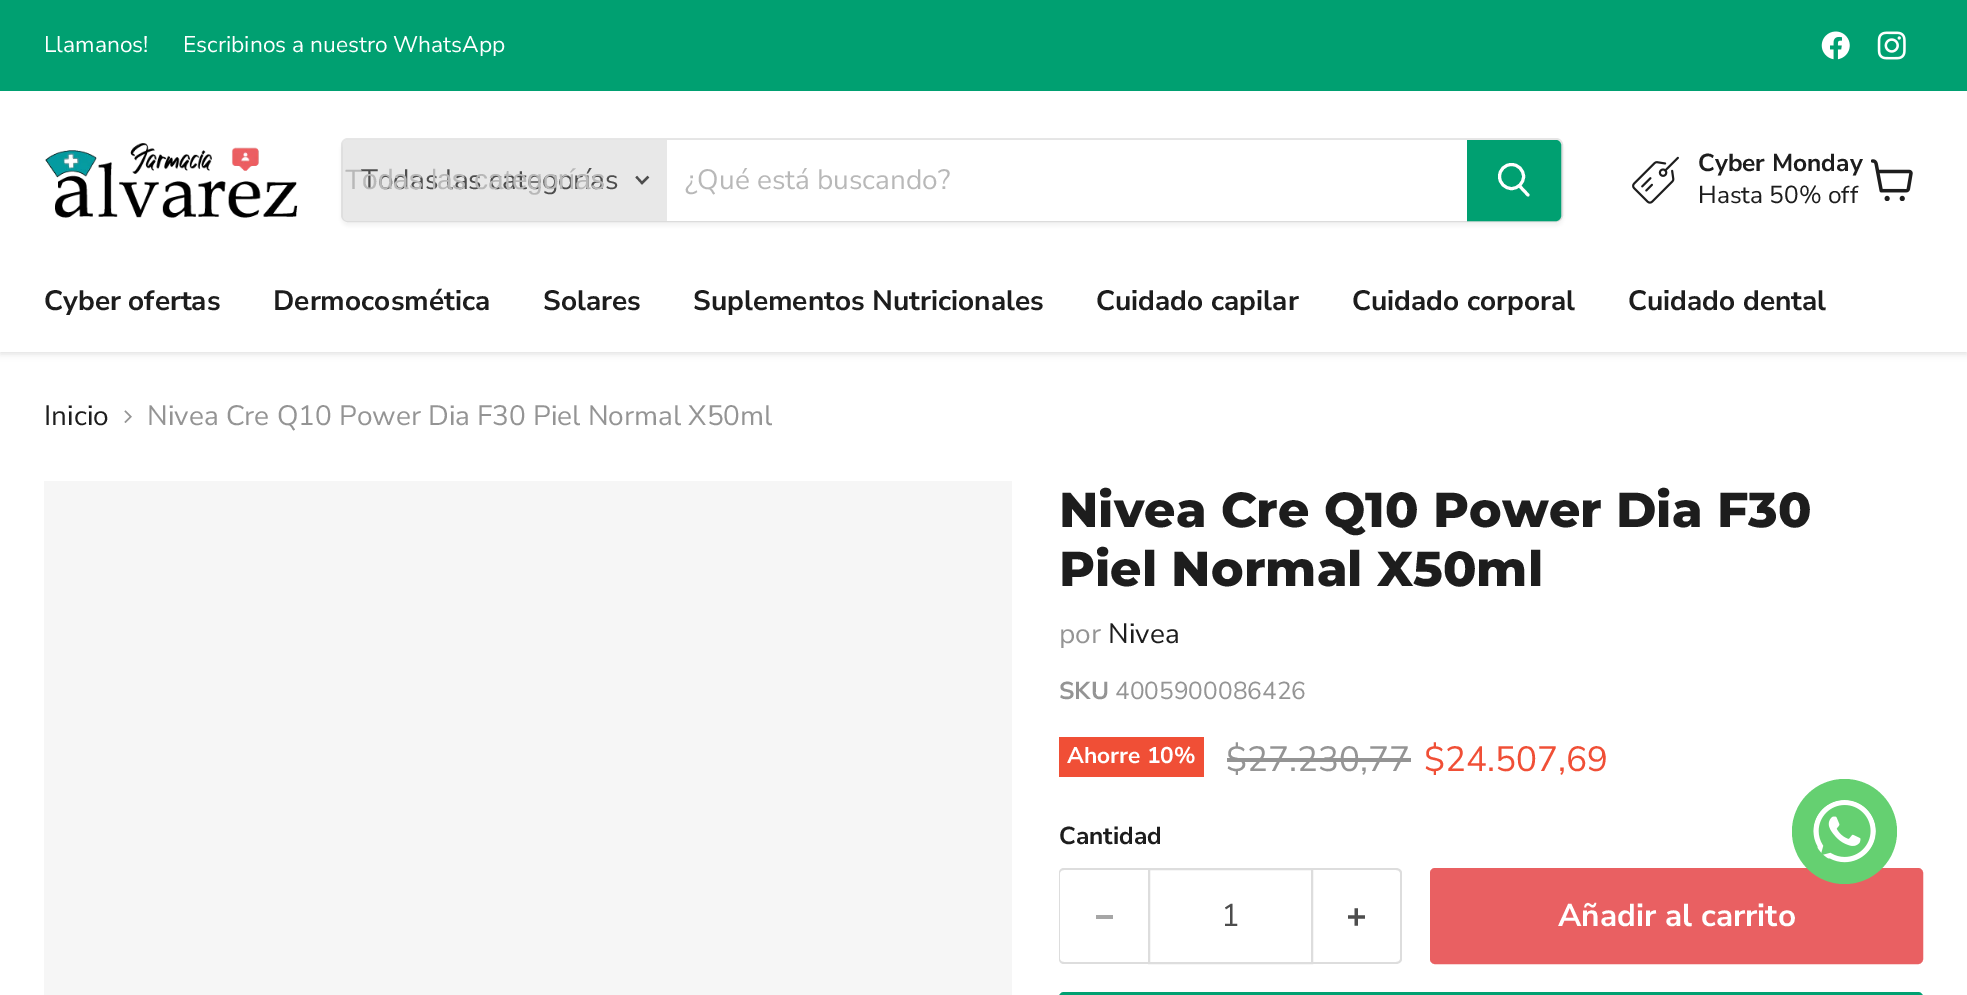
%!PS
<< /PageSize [1967 995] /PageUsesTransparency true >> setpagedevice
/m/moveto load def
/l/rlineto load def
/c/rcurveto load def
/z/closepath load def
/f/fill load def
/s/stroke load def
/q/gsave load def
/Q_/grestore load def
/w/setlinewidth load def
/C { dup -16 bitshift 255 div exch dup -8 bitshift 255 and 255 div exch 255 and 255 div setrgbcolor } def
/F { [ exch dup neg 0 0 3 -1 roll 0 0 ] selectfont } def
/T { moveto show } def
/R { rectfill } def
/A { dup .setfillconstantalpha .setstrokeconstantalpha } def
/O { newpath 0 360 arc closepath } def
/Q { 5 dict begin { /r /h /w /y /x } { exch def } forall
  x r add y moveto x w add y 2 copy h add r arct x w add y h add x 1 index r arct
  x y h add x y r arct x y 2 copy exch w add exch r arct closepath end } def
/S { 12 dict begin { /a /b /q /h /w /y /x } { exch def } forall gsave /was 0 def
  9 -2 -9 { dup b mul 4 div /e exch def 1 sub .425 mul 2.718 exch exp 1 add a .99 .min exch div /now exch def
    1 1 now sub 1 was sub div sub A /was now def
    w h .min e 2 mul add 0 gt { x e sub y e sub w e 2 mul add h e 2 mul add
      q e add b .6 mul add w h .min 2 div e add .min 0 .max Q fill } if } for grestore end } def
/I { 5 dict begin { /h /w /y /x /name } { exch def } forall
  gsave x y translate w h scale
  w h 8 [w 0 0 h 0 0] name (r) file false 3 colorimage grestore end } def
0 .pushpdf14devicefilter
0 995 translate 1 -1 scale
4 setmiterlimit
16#FFFFFF C
0 0 1967 995 R
16#808080 C
0 95 1967 259 0 3.5 .25 S
16#00A071 C
0 0 1967 91 R
/NunitoSans-Regular 22.75 F
16#FFFFFF C
(Llamanos!) 44 52 T
(Escribinos a nuestro WhatsApp) 183 52 T
(1.rgb) 1821 31 29 29 I
(2.rgb) 1877 31 29 29 I
0 91 1967 261 R
(3.rgb) 45 143 253 75 I
16#808080 C
341 142 1222 84 7 2.5 .11 S
0.2 A
2 w
342 139 1220 82 6 Q s
1 A
16#E8E8E8 C
348 140 m 319 0 l 0 81 l -319 0 l -3 0 -5 -2 -5 -5 c 0 -71 l 0 -3 2 -5 5 -5 c z f
/NunitoSans-Regular 28 F
16#4D4D4D C
(Todas las categorías) 361 189 T
/LiberationSans-Regular 28 F
16#B8B8B8 C
(Todas las categorías) 345 189 T
16#4D4D4D C
2.2 w
2 setlinecap
642 183 m 5.5 -5.5 l 642 183 m -5 -5.5 l s
16#FFFFFF C
667 140 800 81 R
/NunitoSans-Regular 28 F
16#B8B8B8 C
(¿Qué está buscando?) 685 189 T
16#00A071 C
1468 141 m 88 0 l 2 0 4 2 4 4 c 0 71 l 0 2 -2 4 -4 4 c -88 0 l z q f Q_
2 w
0 setlinecap
s
16#FFFFFF C
3 w
1 setlinecap
1528 195 m -8 -8.5 l s
0 setlinecap
1511.5 176.5 12 O s
(4.rgb) 1632 156 47 48 I
/NunitoSans-Bold 24.5 F
16#1D1D1D C
(Cyber Monday) 1698 171 T
/NunitoSans-Regular 24.5 F
(Hasta 50% off) 1698 203 T
(5.rgb) 1871 159 42 42 I
/NunitoSans-Bold 28 F
(Cyber ofertas) 44 310 T
(Dermocosmética) 273 310 T
(Solares) 543 310 T
(Suplementos Nutricionales) 693 310 T
(Cuidado capilar) 1096 310 T
(Cuidado corporal) 1352 310 T
(Cuidado dental) 1628 310 T
/NunitoSans-Regular 28 F
(Inicio) 44 425 T
(6.rgb) 124 410 8 13 I
16#949494 C
(Nivea Cre Q10 Power Dia F30 Piel Normal X50ml) 147 425 T
16#F6F6F6 C
44 481 968 514 R
/Montserrat-ExtraBold 49 F
16#1D1D1D C
(Nivea Cre Q10 Power Dia F30) 1059 527 T
(Piel Normal X50ml) 1059 586 T
/NunitoSans-Regular 28 F
16#949494 C
(por) 1059 643 T
16#1D1D1D C
(Nivea) 1108 643 T
/NunitoSans-Bold 24.5 F
16#949494 C
(SKU) 1059 699 T
/NunitoSans-Regular 24.5 F
(4005900086426) 1115 699 T
16#F04F36 C
1059 737 145 40 R
/NunitoSans-Bold 22.75 F
16#FFFFFF C
(Ahorre 10%) 1067 763 T
/NunitoSans-Regular 35 F
16#949494 C
($27.230,77) 1226 771 T
1227 758 184 4 R
16#F04F36 C
($24.507,69) 1424 771 T
/NunitoSans-Bold 24.5 F
16#1D1D1D C
(Cantidad) 1059 844 T
16#DDDDDD C
1064 868 m 84 0 l 0 96 l -84 0 l -3 0 -5 -2 -5 -5 c 0 -86 l 0 -3 2 -5 5 -5 c z 1064 870 m 84 0 l 0 92 l -84 0 l -2 0 -4 -1 -4 -3 c 0 -86 l 0 -2 2 -3 4 -3 c z eofill
16#A6A6A6 C
1096 915 17 4 R
16#DDDDDD C
2 w
1149 869 163 94 rectstroke
/NunitoSans-Regular 31.5 F
16#4D4D4D C
(1) 1221 926 T
16#DDDDDD C
1312 868 m 84 0 l 3 0 6 2 6 5 c 0 86 l 0 3 -3 5 -6 5 c -84 0 l z 1312 870 m 84 0 l 2 0 4 1 4 3 c 0 86 l 0 2 -2 3 -4 3 c -84 0 l z eofill
(7.rgb) 1348 908 17 18 I
16#E96062 C
1431 869 491 94 4 Q q f Q_
s
/NunitoSans-Bold 31.5 F
16#FFFFFF C
(Añadir al carrito) 1558 926 T
16#00A071 C
1060 993 862 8 4 Q q f Q_
s
16#65D071 C
1844.5 831.5 52.5 O f
(8.rgb) 1813 800 63 63 I
.poppdf14devicefilter showpage
